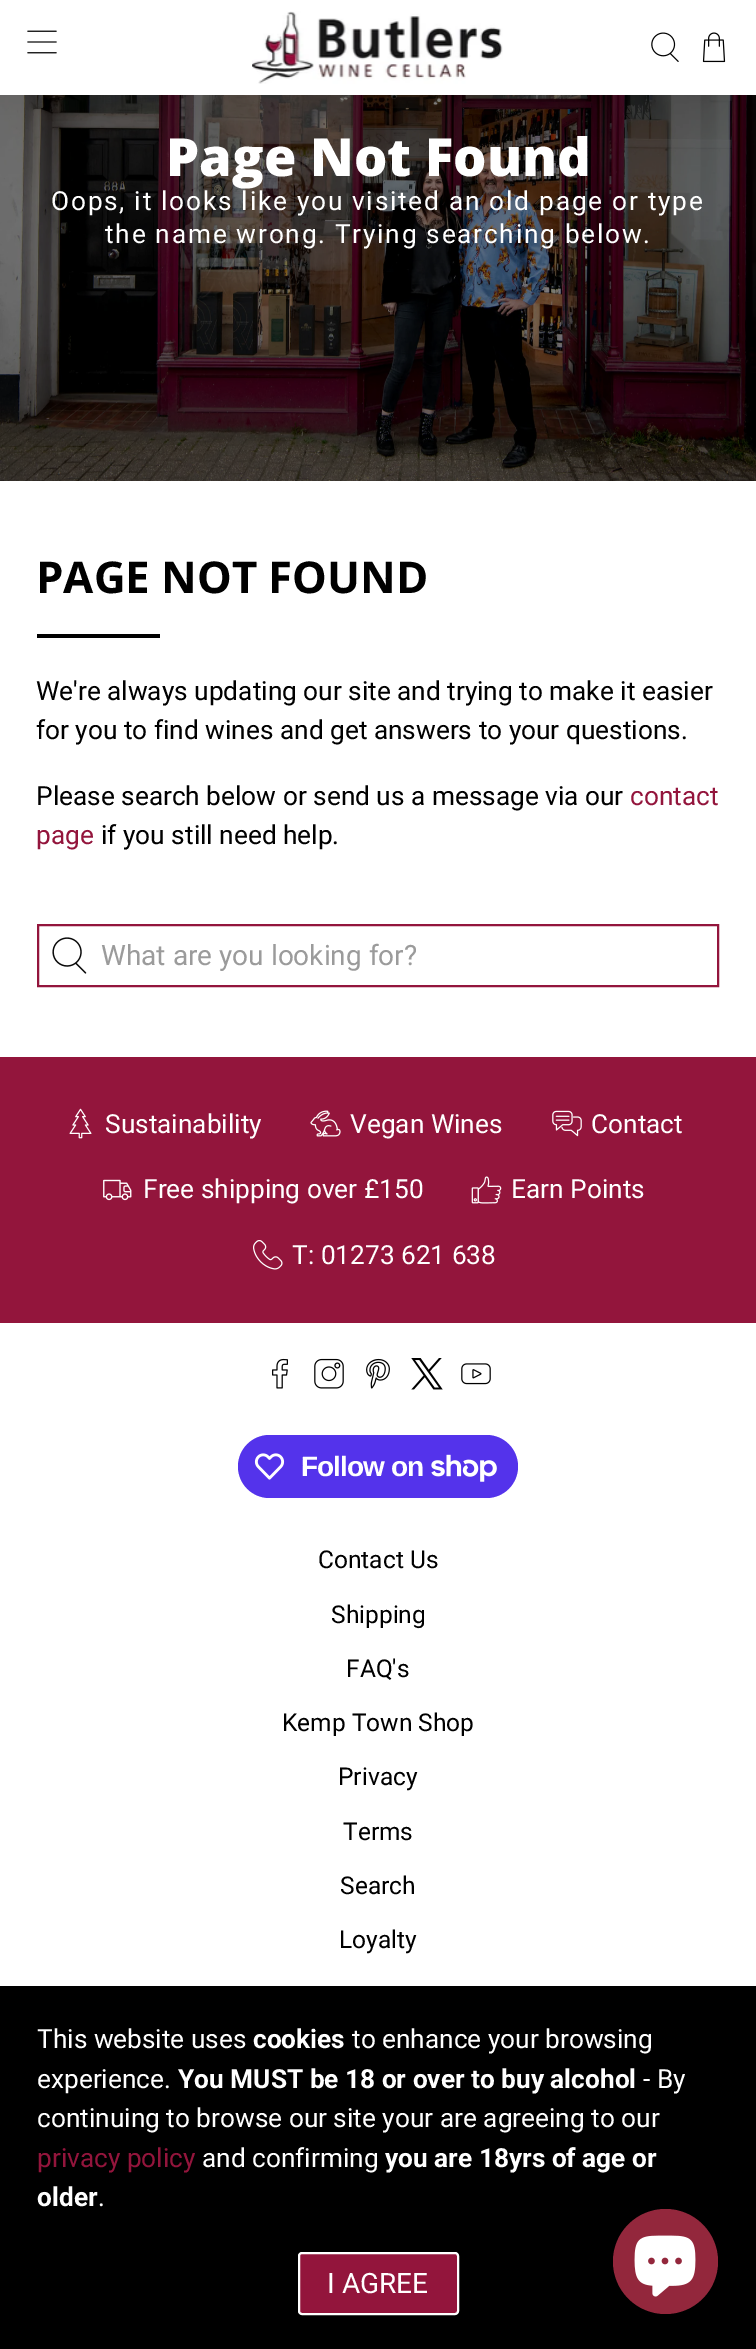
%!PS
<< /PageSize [756 2349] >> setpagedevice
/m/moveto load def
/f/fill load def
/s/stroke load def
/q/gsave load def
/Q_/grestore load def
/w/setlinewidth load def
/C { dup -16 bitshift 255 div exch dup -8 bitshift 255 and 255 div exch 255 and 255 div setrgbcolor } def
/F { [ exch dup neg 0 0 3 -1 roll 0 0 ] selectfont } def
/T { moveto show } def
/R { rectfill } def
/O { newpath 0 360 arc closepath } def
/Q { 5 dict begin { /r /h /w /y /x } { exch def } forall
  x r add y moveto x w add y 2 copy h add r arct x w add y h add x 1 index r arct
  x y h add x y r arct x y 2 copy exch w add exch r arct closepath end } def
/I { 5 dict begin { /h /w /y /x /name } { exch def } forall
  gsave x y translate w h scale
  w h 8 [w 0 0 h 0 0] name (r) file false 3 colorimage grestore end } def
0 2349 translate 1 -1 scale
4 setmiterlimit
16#FFFFFF C
0 0 756 2349 R
(1.rgb) 27 30 30 24 I
(2.rgb) 252 11 251 73 I
(3.rgb) 651 32 28 30 I
(4.rgb) 702 32 24 31 I
(5.rgb) 0 95 756 386 I
/OpenSans-ExtraBold 52.5 F
(Page Not Found) 166 176 T
/Roboto-Regular 26.25 F
51 210 m 1.75 0 (Oops, it looks like you visited an old page or type) ashow
105 243 m 1.75 0 (the name wrong. Trying searching below.) ashow
/OpenSans-Bold 43.75 F
16#000000 C
(PAGE NOT FOUND) 36 593 T
37 634 123 4 R
/Roboto-Regular 26.25 F
(We're always updating our site and trying to make it easier) 36 700 T
(for you to find wines and get answers to your questions.) 36 739 T
(Please search below or send us a message via our) 36 805 T
16#93153C C
(contact) 630 805 T
(page) 36 844 T
16#000000 C
(if you still need help.) 101 844 T
16#93153C C
2 w
38 925 680 61 rectstroke
(6.rgb) 52 937 35 37 I
/Roboto-Regular 28 F
16#9B9B9B C
(What are you looking for?) 101 965 T
16#93153C C
0 1057 756 266 R
(7.rgb) 69 1108 23 31 I
/Roboto-Regular 26.25 F
16#FFFFFF C
(Sustainability) 105 1133 T
(8.rgb) 310 1110 31 27 I
(Vegan Wines) 350 1133 T
(9.rgb) 552 1110 30 27 I
(Contact) 591 1133 T
(10.rgb) 103 1179 29 22 I
(Free shipping over £150) 143 1198 T
(11.rgb) 471 1176 31 28 I
(Earn Points) 511 1198 T
(12.rgb) 253 1240 30 30 I
(T: 01273 621 638) 292 1264 T
(13.rgb) 272 1358 16 31 I
(14.rgb) 314 1358 30 31 I
(15.rgb) 366 1358 24 31 I
(16.rgb) 411 1358 32 32 I
(17.rgb) 461 1363 30 22 I
16#5433EB C
238 1435 280 63 31.5 Q f
(18.rgb) 254 1453 31 27 I
/LiberationSans-Bold 28 F
16#FFFFFF C
301 1476 m -.9 0 (Follow on) ashow
(19.rgb) 431 1454 66 28 I
/Roboto-Regular 24.5 F
16#000000 C
(Contact Us) 318 1568 T
(Shipping) 331 1623 T
(FAQ's) 346 1677 T
(Kemp Town Shop) 282 1731 T
(Privacy) 338 1785 T
(Terms) 343 1840 T
(Search) 340 1894 T
(Loyalty) 339 1948 T
0 1986 756 363 R
/Roboto-Regular 26.25 F
16#FFFFFF C
(This website uses) 37 2048 T
/Roboto-Bold 26.25 F
(cookies) 253 2048 T
/Roboto-Regular 26.25 F
(to enhance your browsing) 352 2048 T
(experience.) 37 2088 T
/Roboto-Bold 26.25 F
(You MUST be 18 or over to buy alcohol) 178 2088 T
/Roboto-Regular 26.25 F
(- By) 643 2088 T
(continuing to browse our site your are agreeing to our) 37 2127 T
16#93153C C
(privacy policy) 37 2167 T
16#FFFFFF C
(and confirming) 202 2167 T
/Roboto-Bold 26.25 F
(you are 18yrs of age or) 385 2167 T
(older) 37 2206 T
/Roboto-Regular 26.25 F
(.) 98 2206 T
16#93153C C
299 2253 159 61 3 Q q f Q_
16#FFFFFF C
s
/Roboto-Regular 28 F
(I AGREE) 327 2293 T
16#93273C C
665.5 2261.5 52.5 O f
(20.rgb) 634 2235 62 62 I
showpage
